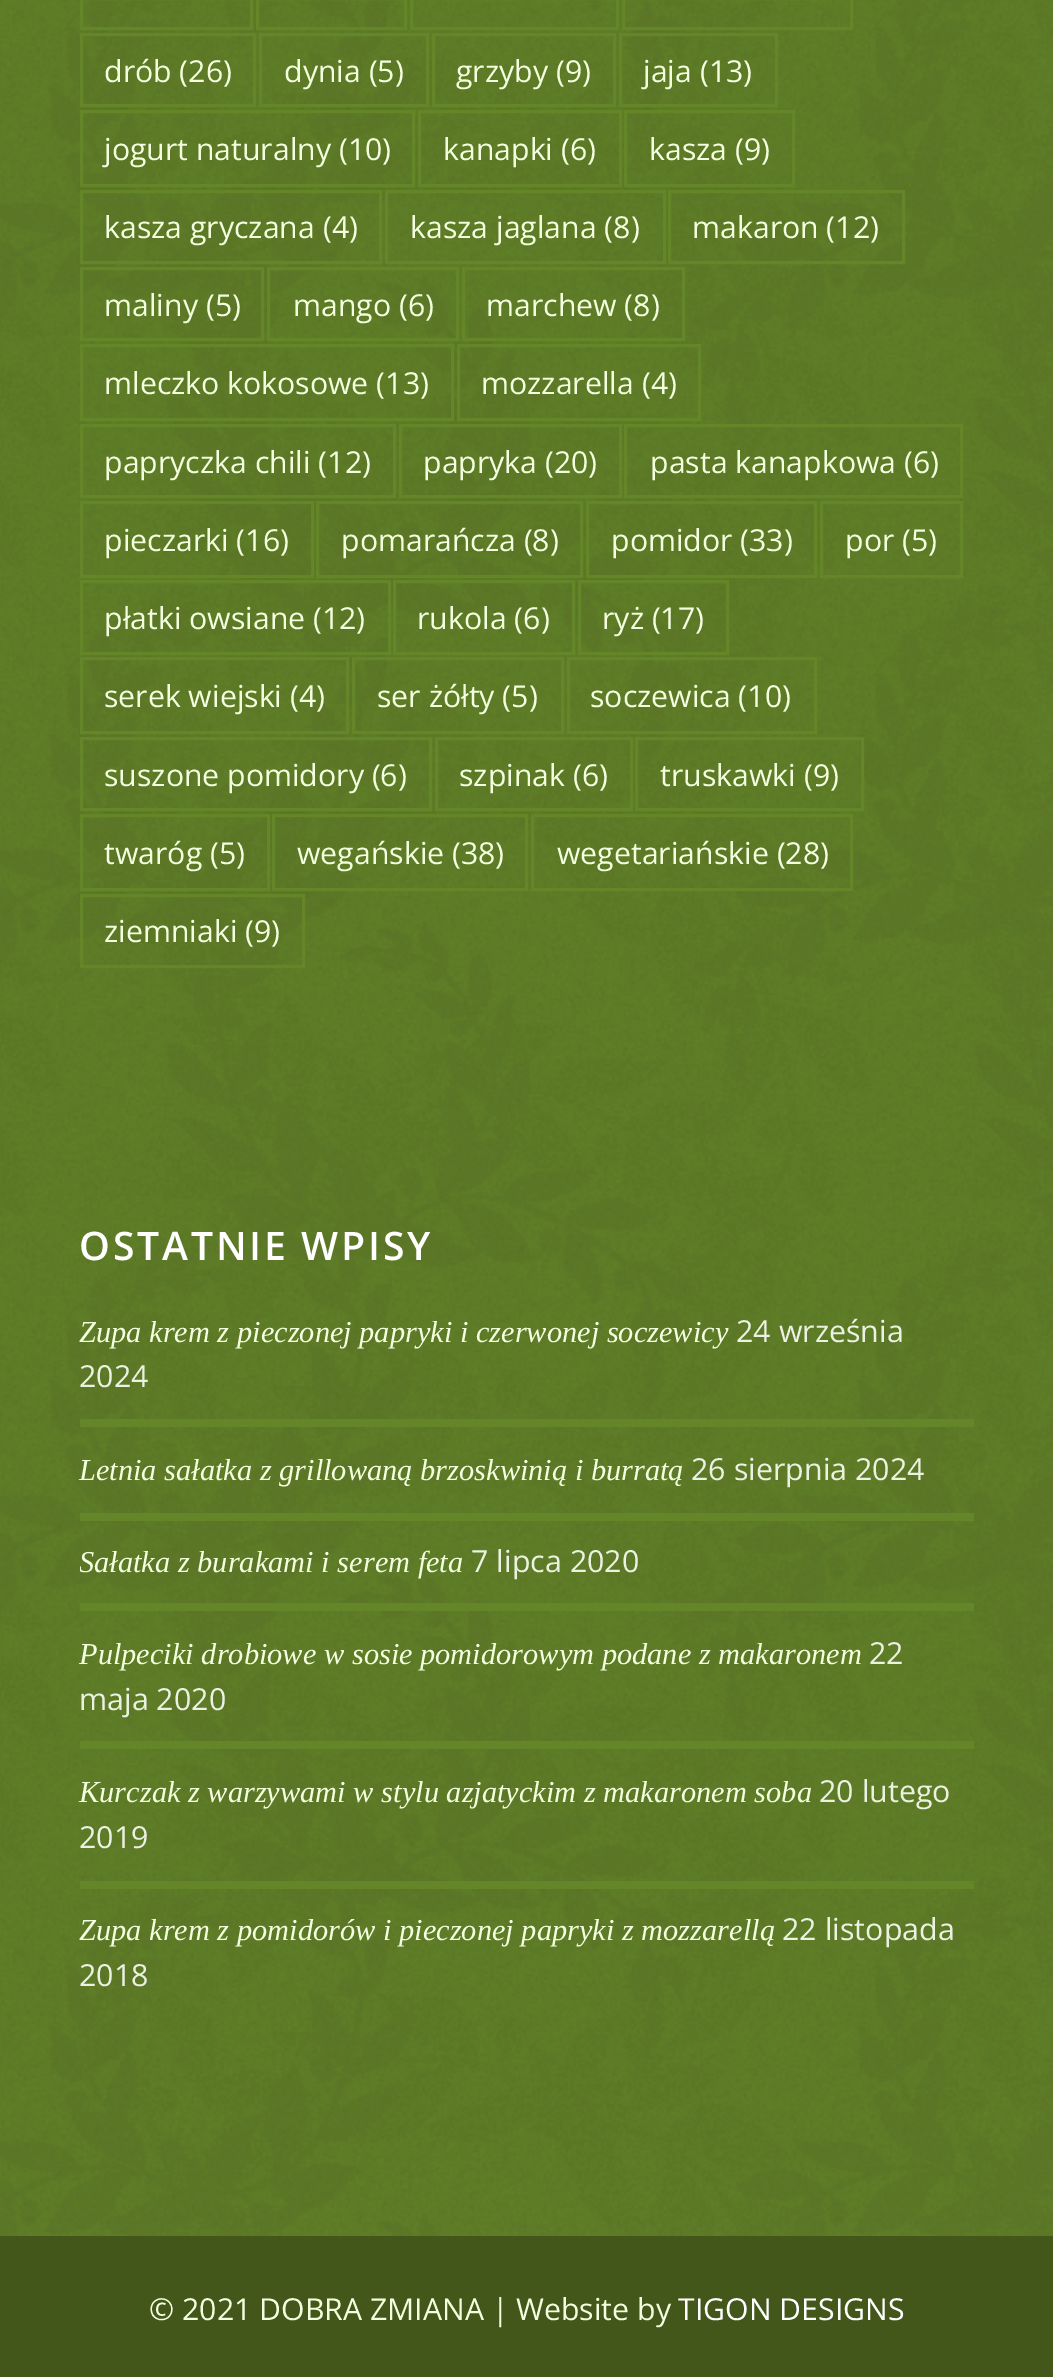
%!PS
<< /PageSize [1053 2377] >> setpagedevice
/m/moveto load def
/q/gsave load def
/Q_/grestore load def
/w/setlinewidth load def
/C { dup -16 bitshift 255 div exch dup -8 bitshift 255 and 255 div exch 255 and 255 div setrgbcolor } def
/F { [ exch dup neg 0 0 3 -1 roll 0 0 ] selectfont } def
/T { moveto show } def
/R { rectfill } def
/I { 5 dict begin { /h /w /y /x /name } { exch def } forall
  gsave x y translate w h scale
  w h 8 [w 0 0 h 0 0] name (r) file false 3 colorimage grestore end } def
0 2377 translate 1 -1 scale
4 setmiterlimit
16#658529 C
0 0 1053 2377 R
(1.rgb) 0 0 1053 2236 I
3 w
81.5 -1.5 170 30 rectstroke
257.5 -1.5 148 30 rectstroke
411.5 -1.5 206 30 rectstroke
623.5 -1.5 228 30 rectstroke
81.5 34.5 173 71 rectstroke
/OpenSans-Regular 30.25 F
16#F3FFDE C
(drób \(26\)) 104 82 T
16#658529 C
260.5 34.5 167 71 rectstroke
16#F3FFDE C
(dynia \(5\)) 284 82 T
16#658529 C
433.5 34.5 181 71 rectstroke
16#F3FFDE C
(grzyby \(9\)) 456 82 T
16#658529 C
620.5 34.5 156 71 rectstroke
16#F3FFDE C
(jaja \(13\)) 643 82 T
16#658529 C
81.5 111.5 332 74 rectstroke
16#F3FFDE C
(jogurt naturalny \(10\)) 104 160 T
16#658529 C
419.5 111.5 201 74 rectstroke
16#F3FFDE C
(kanapki \(6\)) 443 160 T
16#658529 C
625.5 111.5 168 74 rectstroke
16#F3FFDE C
(kasza \(9\)) 649 160 T
16#658529 C
81.5 191.5 299 71 rectstroke
16#F3FFDE C
(kasza gryczana \(4\)) 104 238 T
16#658529 C
386.5 191.5 278 71 rectstroke
16#F3FFDE C
(kasza jaglana \(8\)) 410 238 T
16#658529 C
669.5 191.5 234 71 rectstroke
16#F3FFDE C
(makaron \(12\)) 692 238 T
16#658529 C
81.5 268.5 181 71 rectstroke
16#F3FFDE C
(maliny \(5\)) 104 316 T
16#658529 C
268.5 268.5 189 71 rectstroke
16#F3FFDE C
(mango \(6\)) 293 316 T
16#658529 C
463.5 268.5 220 71 rectstroke
16#F3FFDE C
(marchew \(8\)) 486 316 T
16#658529 C
81.5 345.5 371 74 rectstroke
16#F3FFDE C
(mleczko kokosowe \(13\)) 104 394 T
16#658529 C
458.5 345.5 241 74 rectstroke
16#F3FFDE C
(mozzarella \(4\)) 481 394 T
16#658529 C
81.5 425.5 313 71 rectstroke
16#F3FFDE C
(papryczka chili \(12\)) 104 473 T
16#658529 C
400.5 425.5 220 71 rectstroke
16#F3FFDE C
(papryka \(20\)) 423 473 T
16#658529 C
625.5 425.5 336 71 rectstroke
16#F3FFDE C
(pasta kanapkowa \(6\)) 650 473 T
16#658529 C
81.5 502.5 231 74 rectstroke
16#F3FFDE C
(pieczarki \(16\)) 104 551 T
16#658529 C
317.5 502.5 264 74 rectstroke
16#F3FFDE C
(pomarańcza \(8\)) 341 551 T
16#658529 C
587.5 502.5 228 74 rectstroke
16#F3FFDE C
(pomidor \(33\)) 611 551 T
16#658529 C
821.5 502.5 140 74 rectstroke
16#F3FFDE C
(por \(5\)) 845 551 T
16#658529 C
81.5 581.5 308 72 rectstroke
16#F3FFDE C
(płatki owsiane \(12\)) 104 629 T
16#658529 C
394.5 581.5 179 72 rectstroke
16#F3FFDE C
(rukola \(6\)) 417 629 T
16#658529 C
579.5 581.5 148 72 rectstroke
16#F3FFDE C
(ryż \(17\)) 602 629 T
16#658529 C
81.5 658.5 266 74 rectstroke
16#F3FFDE C
(serek wiejski \(4\)) 104 707 T
16#658529 C
353.5 658.5 209 74 rectstroke
16#F3FFDE C
(ser żółty \(5\)) 377 707 T
16#658529 C
568.5 658.5 247 74 rectstroke
16#F3FFDE C
(soczewica \(10\)) 590 707 T
16#658529 C
81.5 738.5 349 71 rectstroke
16#F3FFDE C
(suszone pomidory \(6\)) 104 786 T
16#658529 C
436.5 738.5 195 71 rectstroke
16#F3FFDE C
(szpinak \(6\)) 459 786 T
16#658529 C
636.5 738.5 226 71 rectstroke
16#F3FFDE C
(truskawki \(9\)) 660 786 T
16#658529 C
81.5 815.5 187 74 rectstroke
16#F3FFDE C
(twaróg \(5\)) 104 864 T
16#658529 C
273.5 815.5 253 74 rectstroke
16#F3FFDE C
(wegańskie \(38\)) 297 864 T
16#658529 C
532.5 815.5 319 74 rectstroke
16#F3FFDE C
(wegetariańskie \(28\)) 557 864 T
16#658529 C
81.5 895.5 222 71 rectstroke
16#F3FFDE C
(ziemniaki \(9\)) 104 942 T
/OpenSans-SemiBold 39.25 F
16#FFFFFF C
79 1260 m 2.75 0 (OSTATNIE WPISY) ashow
/LiberationSerif-Italic 30.4 F
16#F3FFDE C
(Zupa krem z pieczonej papryki i czerwonej soczewicy) 79 1342 T
/OpenSans-Regular 30.4 F
16#ECF2E1 C
(24 września) 736 1342 T
(2024) 79 1387 T
16#658529 C
80 1419 894 8 R
/LiberationSerif-Italic 30.4 F
16#F3FFDE C
(Letnia sałatka z grillowaną brzoskwinią i burratą) 79 1480 T
/OpenSans-Regular 30.4 F
16#ECF2E1 C
(26 sierpnia 2024) 691 1480 T
16#658529 C
80 1513 894 8 R
q
80 1191 894 828 rectclip
/LiberationSerif-Italic 30.4 F
16#F3FFDE C
(Sałatka z burakami i serem feta) 79 1572 T
Q_
16#ECF2E1 C
(7 lipca 2020) 471 1572 T
16#658529 C
80 1603 894 8 R
/LiberationSerif-Italic 30.4 F
16#F3FFDE C
(Pulpeciki drobiowe w sosie pomidorowym podane z makaronem) 79 1664 T
/OpenSans-Regular 30.4 F
16#ECF2E1 C
(22) 869 1664 T
(maja 2020) 79 1710 T
16#658529 C
80 1741 894 8 R
/LiberationSerif-Italic 30.4 F
16#F3FFDE C
(Kurczak z warzywami w stylu azjatyckim z makaronem soba) 79 1802 T
/OpenSans-Regular 30.4 F
16#ECF2E1 C
(20 lutego) 819 1802 T
(2019) 79 1848 T
16#658529 C
80 1881 894 8 R
/LiberationSerif-Italic 30.4 F
16#F3FFDE C
(Zupa krem z pomidorów i pieczonej papryki z mozzarellą) 79 1940 T
/OpenSans-Regular 30.4 F
16#ECF2E1 C
(22 listopada) 782 1940 T
(2018) 79 1986 T
16#425719 C
0 2236 1053 141 R
/OpenSans-Regular 30.25 F
16#F3FFDE C
(© 2021 DOBRA ZMIANA | Website by) 149 2320 T
16#FFFFFF C
(TIGON DESIGNS) 678 2320 T
showpage
